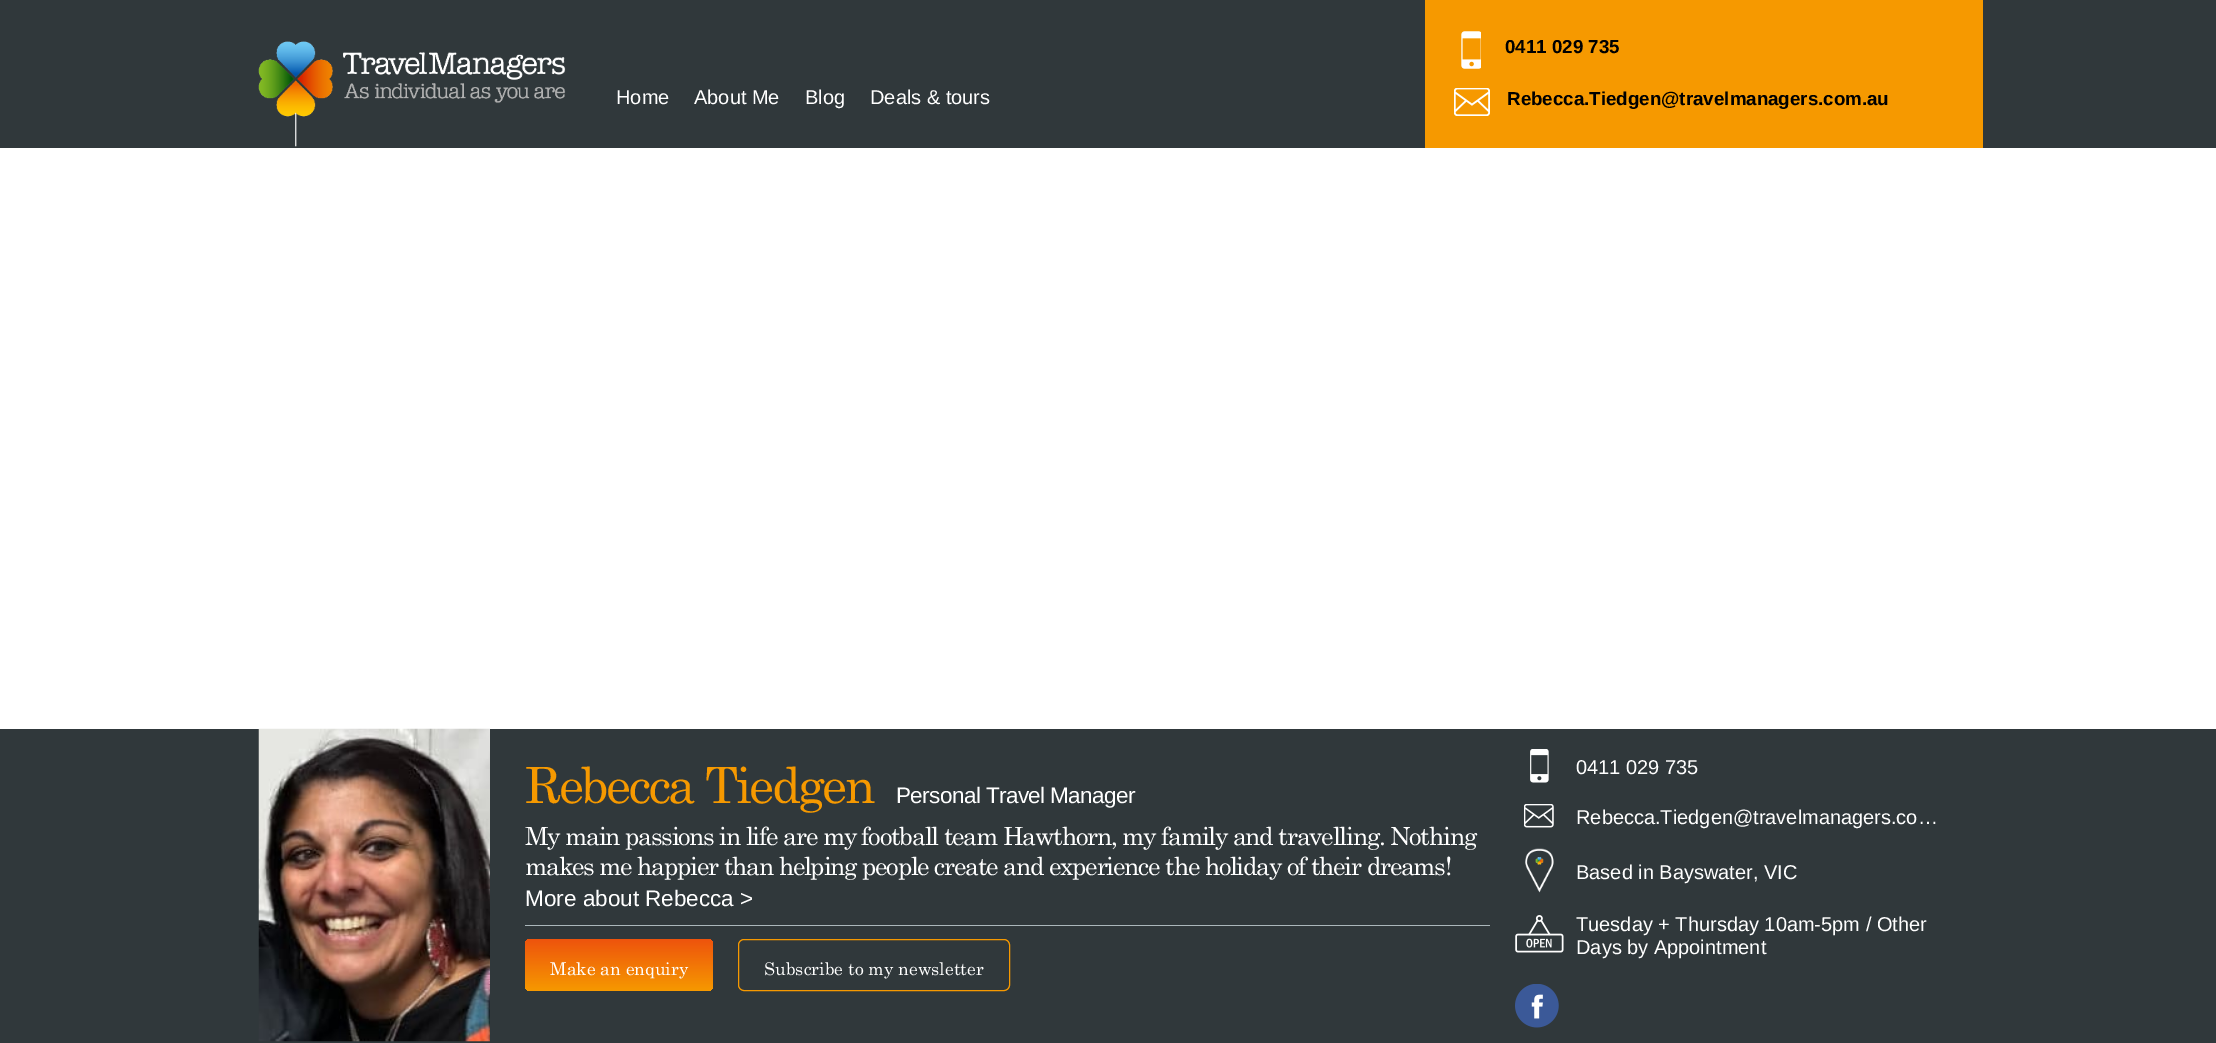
%!PS
<< /PageSize [2216 1043] >> setpagedevice
/m/moveto load def
/s/stroke load def
/q/gsave load def
/Q_/grestore load def
/C { dup -16 bitshift 255 div exch dup -8 bitshift 255 and 255 div exch 255 and 255 div setrgbcolor } def
/F { [ exch dup neg 0 0 3 -1 roll 0 0 ] selectfont } def
/T { moveto show } def
/R { rectfill } def
/Q { 5 dict begin { /r /h /w /y /x } { exch def } forall
  x r add y moveto x w add y 2 copy h add r arct x w add y h add x 1 index r arct
  x y h add x y r arct x y 2 copy exch w add exch r arct closepath end } def
/I { 5 dict begin { /h /w /y /x /name } { exch def } forall
  gsave x y translate w h scale
  w h 8 [w 0 0 h 0 0] name (r) file false 3 colorimage grestore end } def
0 1043 translate 1 -1 scale
4 setmiterlimit
16#FFFFFF C
0 0 2216 1043 R
16#30383B C
0 0 2216 148 R
(1.rgb) 258 41 308 106 I
/LiberationSans-Regular 20 F
16#FFFFFF C
(Home) 616 104 T
(About Me) 694 104 T
(Blog) 805 104 T
(Deals & tours) 870 104 T
16#F69900 C
1425 0 558 148 R
(2.rgb) 1461 31 20 38 I
/LiberationSans-Bold 18.75 F
16#000000 C
(0411 029 735) 1505 53 T
(3.rgb) 1454 88 36 28 I
(Rebecca.Tiedgen@travelmanagers.com.au) 1507 105 T
16#30383B C
0 729 2216 314 R
(4.rgb) 258 728 232 314 I
/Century-Regular 50 F
16#F69900 C
525 803 m -2.5 0 (Rebecca Tiedgen) ashow
/LiberationSans-Regular 22.5 F
16#FFFFFF C
896 803 m -.6 0 (Personal Travel Manager) ashow
/Century-Regular 25 F
525 845 m -1.25 0 (My main passions in life are my football team Hawthorn, my family and travelling. Nothing) ashow
525 875 m -1.25 0 (makes me happier than helping people create and experience the holiday of their dreams!) ashow
/LiberationSans-Regular 22.5 F
(More about Rebecca >) 525 906 T
16#ABB7BB C
525 925 965 1 R
q 525 939 188 52 6 Q clip newpath
<< /ShadingType 2 /ColorSpace /DeviceRGB /Coords [619 939 619 991] /Extend [true true] /Function << /FunctionType 2 /Domain [0 1] /C0 [.933 .325 .051] /C1 [.965 .6 0] /N 1 >> >> shfill Q_
/Century-Regular 17.5 F
16#FFFFFF C
(Make an enquiry) 550 975 T
16#F69900 C
738.5 939.5 271 51 5.5 Q s
16#FFFFFF C
(Subscribe to my newsletter) 764 975 T
(5.rgb) 1530 749 19 34 I
/LiberationSans-Regular 20 F
(0411 029 735) 1576 774 T
(6.rgb) 1524 804 30 24 I
(Rebecca.Tiedgen@travelmanagers.co…) 1576 824 T
(7.rgb) 1525 848 29 45 I
(Based in Bayswater, VIC) 1576 879 T
(8.rgb) 1515 915 49 38 I
(Tuesday + Thursday 10am-5pm / Other) 1576 931 T
(Days by Appointment) 1576 954 T
(9.rgb) 1515 984 44 44 I
showpage
